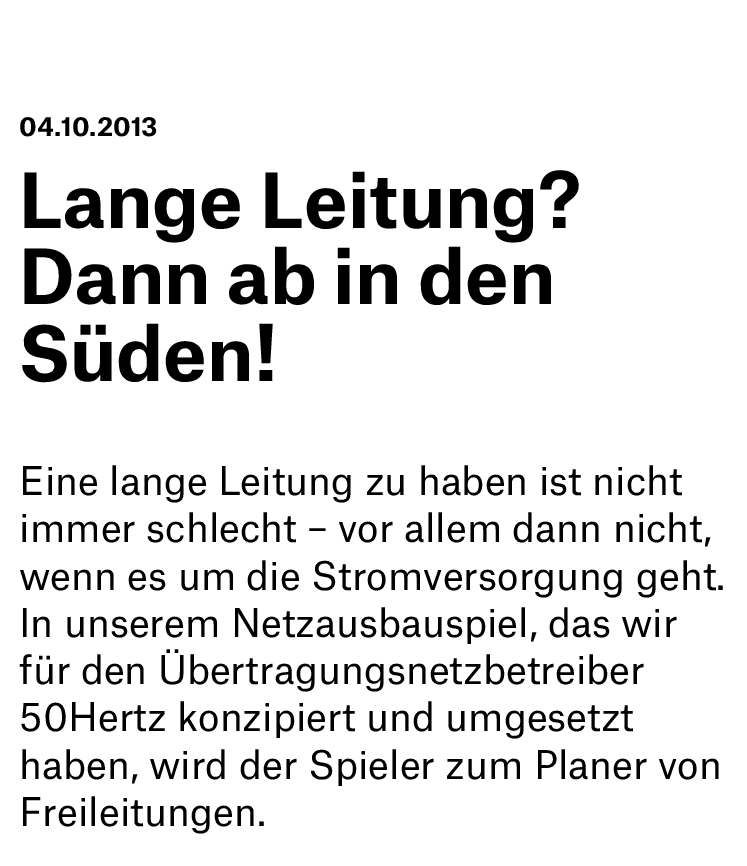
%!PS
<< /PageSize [747 866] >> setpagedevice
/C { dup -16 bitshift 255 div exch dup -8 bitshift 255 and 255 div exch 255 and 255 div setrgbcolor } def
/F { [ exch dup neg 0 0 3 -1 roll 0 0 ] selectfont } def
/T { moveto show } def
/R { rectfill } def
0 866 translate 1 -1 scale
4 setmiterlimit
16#FFFFFF C
0 0 747 866 R
/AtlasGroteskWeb-Bold 25.25 F
16#000000 C
(04.10.2013) 19 136 T
/AtlasGroteskWeb-Bold 72.75 F
(Lange Leitung?) 19 228 T
(Dann ab in den) 19 304 T
(Süden!) 19 381 T
/AtlasGroteskWeb-Regular 37.8 F
(Eine lange Leitung zu haben ist nicht) 19 495 T
(immer schlecht – vor allem dann nicht,) 19 542 T
(wenn es um die Stromversorgung geht.) 19 590 T
(In unserem Netzausbauspiel, das wir) 19 637 T
(für den Übertragungsnetzbetreiber) 19 684 T
(50Hertz konzipiert und umgesetzt) 19 731 T
(haben, wird der Spieler zum Planer von) 19 779 T
(Freileitungen.) 19 826 T
showpage
